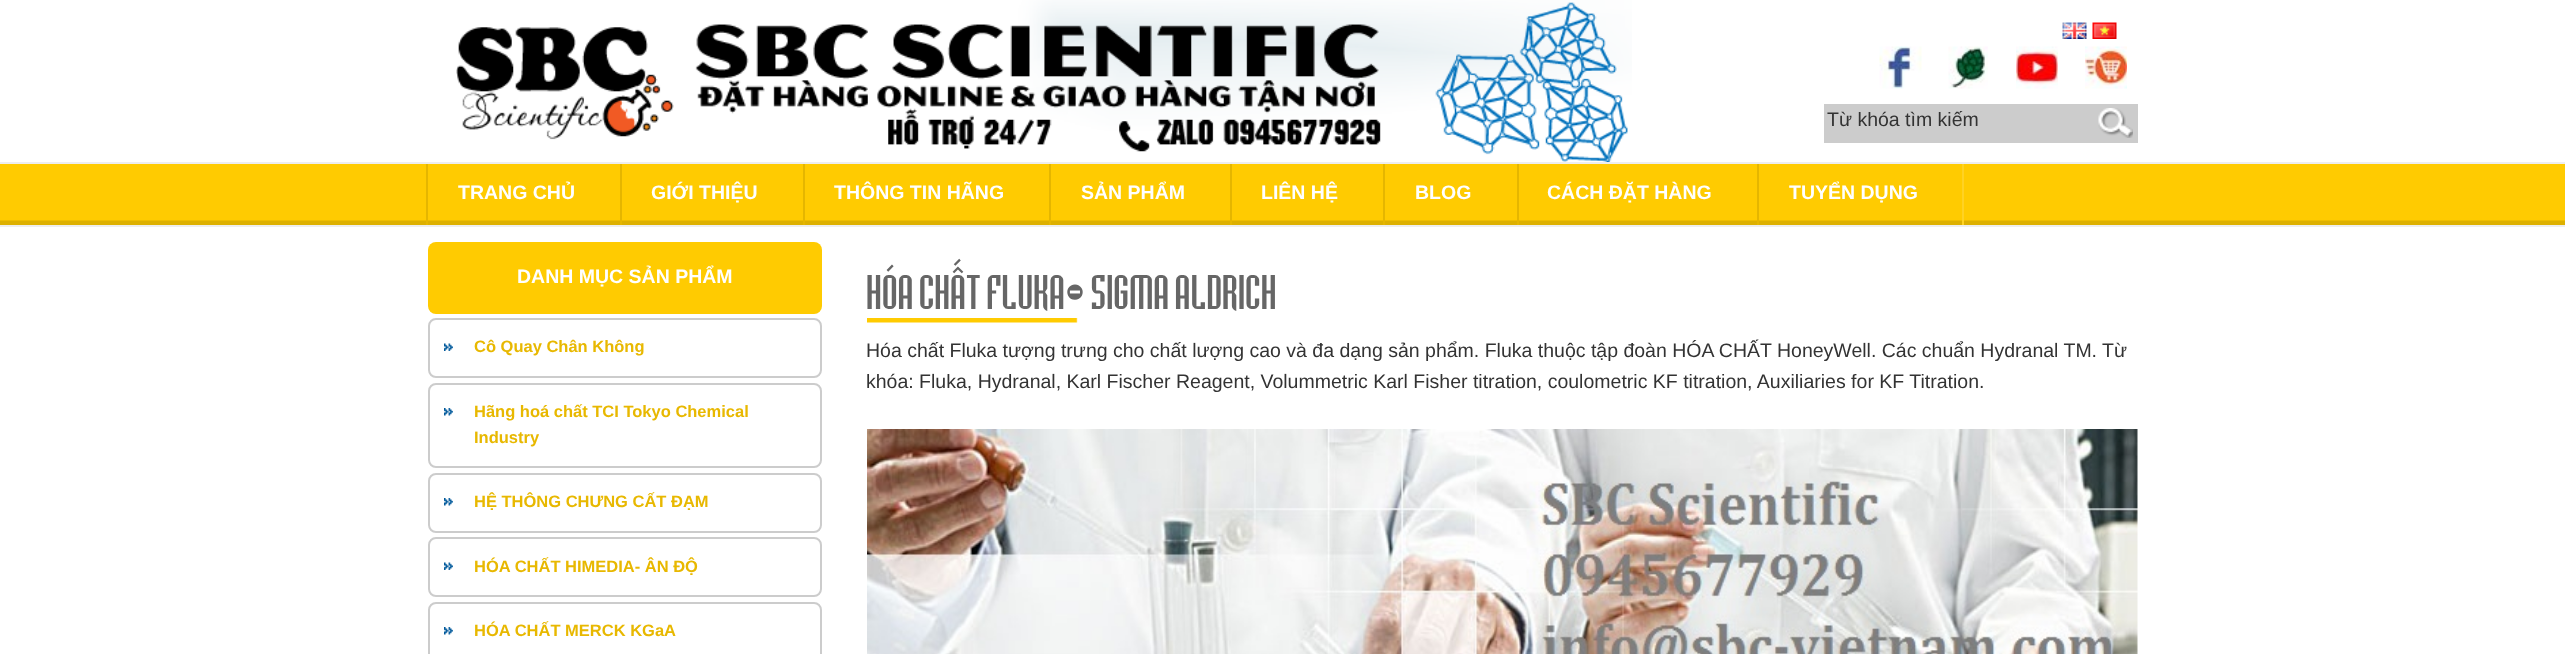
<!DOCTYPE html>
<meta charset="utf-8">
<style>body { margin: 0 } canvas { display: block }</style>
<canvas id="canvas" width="2565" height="654"></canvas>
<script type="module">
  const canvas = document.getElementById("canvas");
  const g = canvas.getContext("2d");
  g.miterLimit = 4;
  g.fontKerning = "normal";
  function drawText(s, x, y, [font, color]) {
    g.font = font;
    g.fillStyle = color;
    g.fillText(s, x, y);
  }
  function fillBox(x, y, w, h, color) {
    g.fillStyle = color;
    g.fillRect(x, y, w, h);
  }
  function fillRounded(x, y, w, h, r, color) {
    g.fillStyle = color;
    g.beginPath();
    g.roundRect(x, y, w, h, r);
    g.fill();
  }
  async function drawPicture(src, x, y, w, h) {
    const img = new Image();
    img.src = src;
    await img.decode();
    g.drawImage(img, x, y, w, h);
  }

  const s1 = ["19.5px Liberation Sans", "#333333"];
  const s2 = ["bold 19.5px Liberation Sans", "#FFFFFF"];
  const s3 = ["bold 16.5px Liberation Sans", "#E8B800"];
  const s4 = ["45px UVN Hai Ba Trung", "#666666"];

  fillBox(0, 0, 2565, 654, "#FFFFFF");
  await drawPicture("pic1.png", 456, 0, 1176, 162);
  await drawPicture("pic2.png", 2062, 22, 25, 17);
  await drawPicture("pic3.png", 2092, 22, 25, 17);
  await drawPicture("pic4.png", 1879, 46, 43, 43);
  await drawPicture("pic5.png", 1948, 46, 40, 43);
  await drawPicture("pic6.png", 2016, 46, 42, 43);
  await drawPicture("pic7.png", 2085, 46, 42, 43);
  fillBox(1824, 104, 314, 39, "#CCCCCC");
  drawText("Từ khóa tìm kiếm", 1827, 126, s1);
  await drawPicture("pic8.png", 2098, 108, 35, 30);
  await drawPicture("pic9.png", 0, 164, 2565, 61);
  fillBox(0, 162, 2565, 2, "#EEEEEE");
  fillBox(0, 225, 2565, 2, "#EEEEEE");
  fillBox(426, 164, 2, 61, "#E5B600");
  drawText("TRANG CHỦ", 458, 199, s2);
  fillBox(620, 164, 2, 61, "#E5B600");
  drawText("GIỚI THIỆU", 651, 199, s2);
  fillBox(803, 164, 2, 61, "#E5B600");
  drawText("THÔNG TIN HÃNG", 834, 199, s2);
  fillBox(1049, 164, 2, 61, "#E5B600");
  drawText("SẢN PHẨM", 1081, 199, s2);
  fillBox(1230, 164, 2, 61, "#E5B600");
  drawText("LIÊN HỆ", 1261, 199, s2);
  fillBox(1383, 164, 2, 61, "#E5B600");
  drawText("BLOG", 1415, 199, s2);
  fillBox(1517, 164, 2, 61, "#E5B600");
  drawText("CÁCH ĐẶT HÀNG", 1547, 199, s2);
  fillBox(1962, 164, 2, 61, "#FFD224");
  fillBox(1757, 164, 2, 61, "#E5B600");
  drawText("TUYỂN DỤNG", 1789, 199, s2);
  fillRounded(428, 242, 394, 72, 8, "#FFCB01");
  drawText("DANH MỤC SẢN PHẨM", 517, 283, s2);
  g.beginPath();
  g.roundRect(429, 319, 392, 58, 7);
  g.strokeStyle = "#CCCCCC";
  g.lineWidth = 2;
  g.stroke();
  await drawPicture("pic10.png", 444, 343, 9, 8);
  drawText("Cô Quay Chân Không", 474, 352, s3);
  g.beginPath();
  g.roundRect(429, 384, 392, 83, 7);
  g.stroke();
  await drawPicture("pic11.png", 444, 408, 9, 8);
  drawText("Hãng hoá chất TCI Tokyo Chemical", 474, 417, s3);
  drawText("Industry", 474, 443, s3);
  g.beginPath();
  g.roundRect(429, 474, 392, 58, 7);
  g.stroke();
  await drawPicture("pic11.png", 444, 498, 9, 8);
  drawText("HỆ THÔNG CHƯNG CẤT ĐẠM", 474, 507, s3);
  g.beginPath();
  g.roundRect(429, 538, 392, 58, 7);
  g.stroke();
  await drawPicture("pic10.png", 444, 562, 9, 8);
  drawText("HÓA CHẤT HIMEDIA- ÂN ĐỘ", 474, 572, s3);
  g.beginPath();
  g.roundRect(429, 603, 392, 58, 7);
  g.stroke();
  await drawPicture("pic11.png", 444, 627, 9, 8);
  drawText("HÓA CHẤT MERCK KGaA", 474, 636, s3);
  await drawPicture("pic12.png", 867, 318, 211, 5);
  drawText("HÓA CHẤT FLUKA- SIGMA ALDRICH", 866, 309, s4);
  drawText("Hóa chất Fluka tượng trưng cho chất lượng cao và đa dạng sản phẩm. Fluka thuộc tập đoàn HÓA CHẤT HoneyWell. Các chuẩn Hydranal TM. Từ", 866, 357, s1);
  drawText("khóa: Fluka, Hydranal, Karl Fischer Reagent, Volummetric Karl Fisher titration, coulometric KF titration, Auxiliaries for KF Titration.", 866, 388, s1);
  await drawPicture("pic13.png", 867, 429, 1271, 225);
</script>
